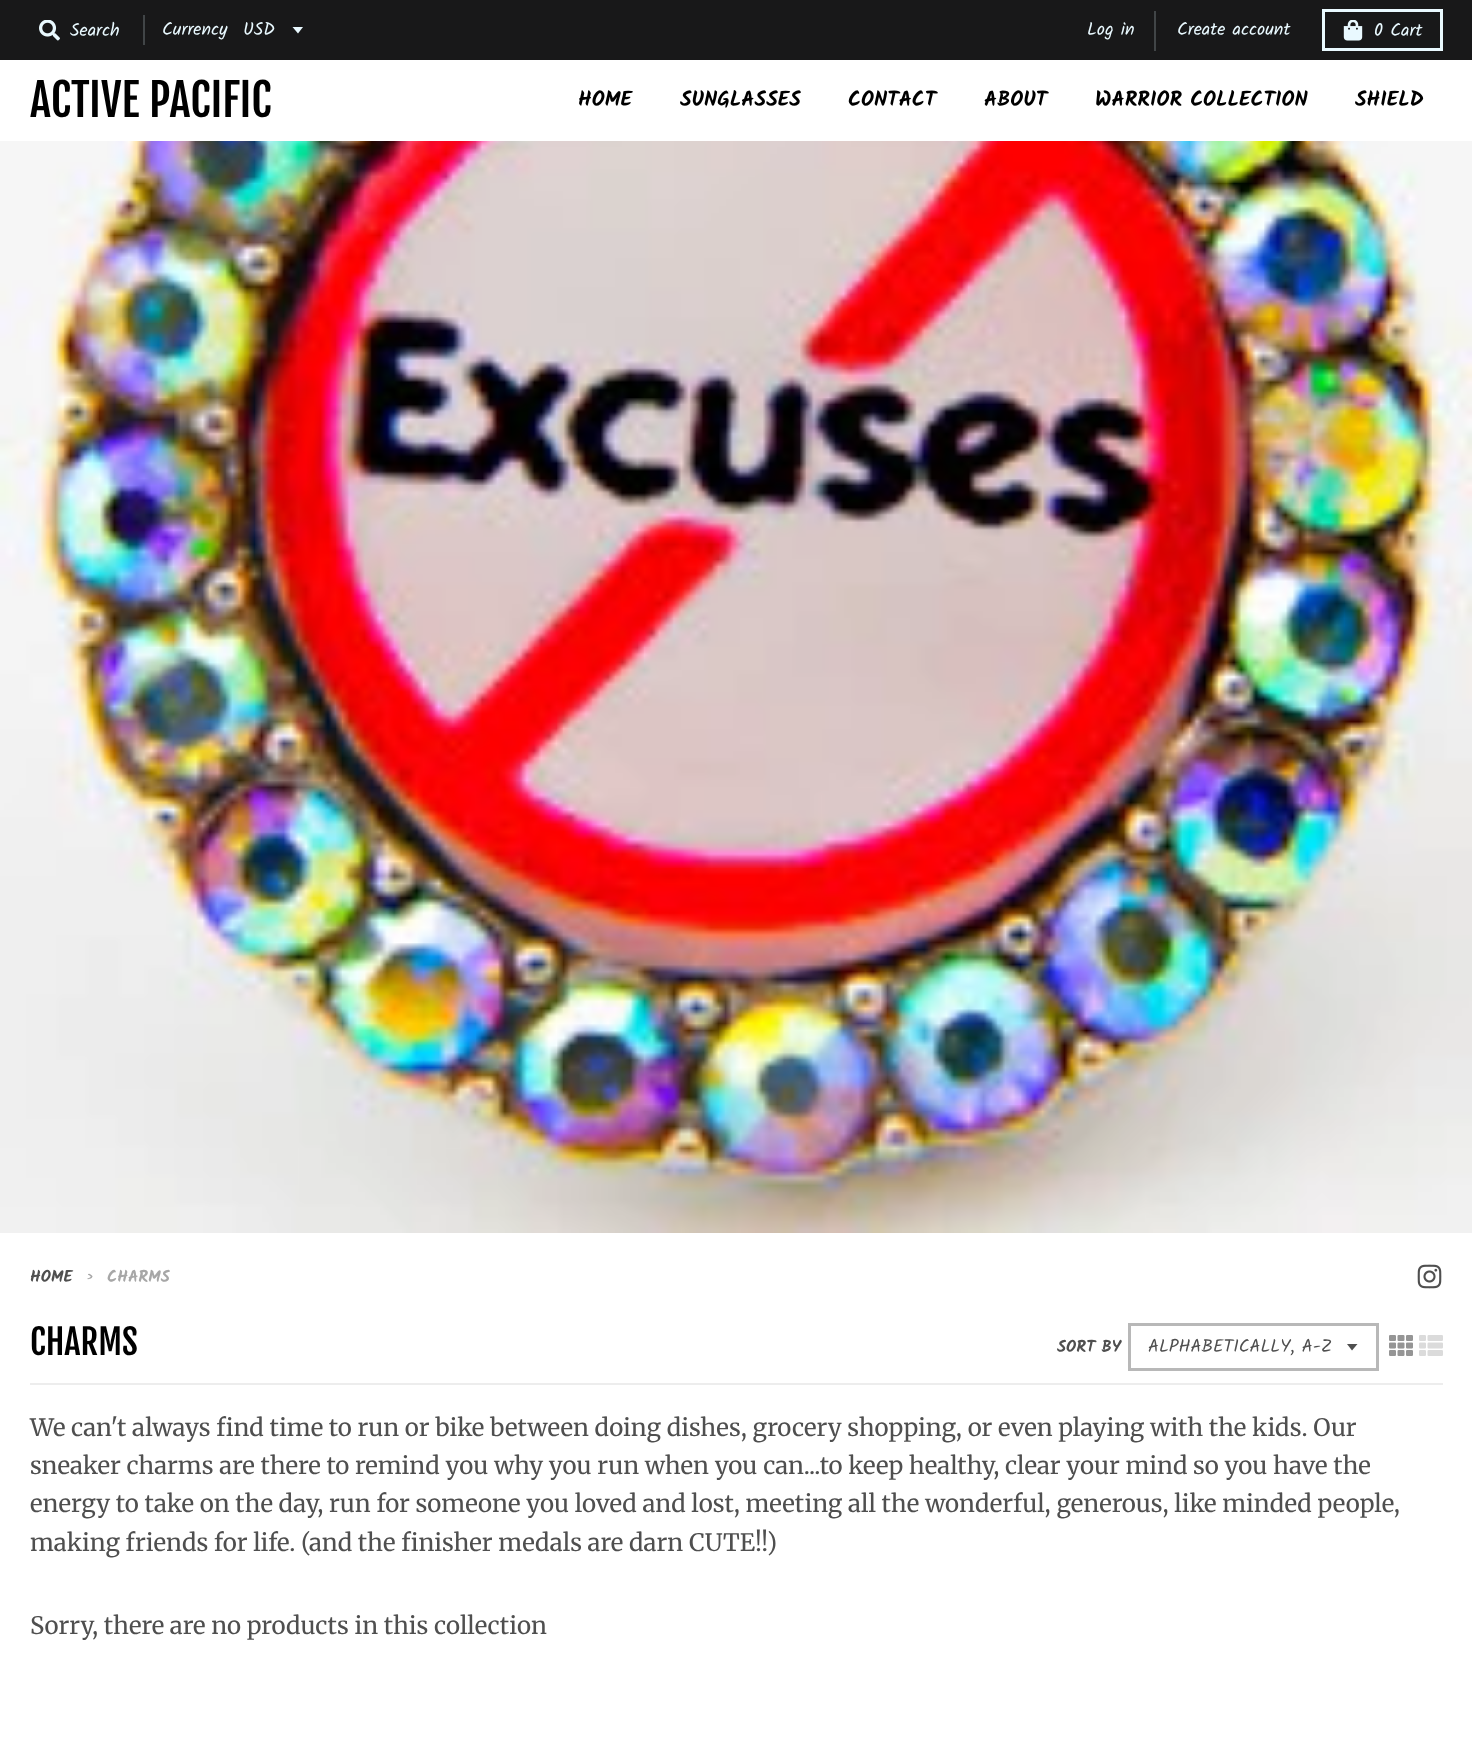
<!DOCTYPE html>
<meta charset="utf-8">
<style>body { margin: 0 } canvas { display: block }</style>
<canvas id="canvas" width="1472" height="1749"></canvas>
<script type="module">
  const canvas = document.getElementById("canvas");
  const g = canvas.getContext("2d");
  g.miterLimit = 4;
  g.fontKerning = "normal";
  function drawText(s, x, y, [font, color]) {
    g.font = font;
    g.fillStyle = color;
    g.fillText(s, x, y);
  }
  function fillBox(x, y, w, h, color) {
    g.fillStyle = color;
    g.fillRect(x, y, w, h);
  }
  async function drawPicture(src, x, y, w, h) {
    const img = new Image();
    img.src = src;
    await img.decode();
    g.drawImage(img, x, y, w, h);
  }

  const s1 = ["18px Kalam", "#E9F9FF"];
  const s2 = ["44.5px Fjalla One", "#000000"];
  const s3 = ["bold 21px Kalam", "#000000"];
  const s4 = ["bold 16.5px Kalam", "#4F4F4F"];
  const s5 = ["bold 16.5px Kalam", "#A7A7A7"];
  const s6 = ["34.5px Fjalla One", "#000000"];
  const s7 = ["18px Kalam", "#4F4F4F"];
  const s8 = ["24px Merriweather", "#4F4F4F"];

  fillBox(0, 0, 1472, 1749, "#FFFFFF");
  fillBox(0, 0, 1472, 60, "#181819");
  await drawPicture("pic1.png", 39, 20, 21, 21);
  drawText("Search", 70, 36, s1);
  fillBox(143, 15, 2, 30, "#414547");
  drawText("Currency", 162, 35, s1);
  g.beginPath();
  g.moveTo(292.5, 27);
  g.lineTo(298, 33.5);
  g.lineTo(303, 27);
  g.closePath();
  g.fill();
  drawText("USD", 243, 35, s1);
  fillBox(1154, 11, 2, 40, "#414547");
  drawText("Log in", 1087, 35, s1);
  drawText("Create account", 1177, 35, s1);
  g.strokeStyle = "#E9F9FF";
  g.lineWidth = 3;
  g.strokeRect(1323.5, 10.5, 118, 39);
  await drawPicture("pic2.png", 1343, 20, 20, 21);
  drawText("0 Cart", 1374, 36, s1);
  drawText("ACTIVE PACIFIC", 30, 117, s2);
  drawText("HOME", 578, 106, s3);
  drawText("SUNGLASSES", 680, 106, s3);
  drawText("CONTACT", 848, 106, s3);
  drawText("ABOUT", 984, 106, s3);
  drawText("WARRIOR COLLECTION", 1095, 106, s3);
  drawText("SHIELD", 1355, 106, s3);
  await drawPicture("pic3.png", 0, 141, 1472, 1092);
  drawText("HOME", 30, 1282, s4);
  drawText("›", 85, 1282, s5);
  drawText("CHARMS", 107, 1282, s5);
  await drawPicture("pic4.png", 1417, 1264, 25, 25);
  fillBox(30, 1383, 1413, 2, "#EDEDED");
  drawText("CHARMS", 30, 1355, s6);
  drawText("SORT BY", 1057, 1352, s4);
  g.beginPath();
  g.moveTo(1347, 1344);
  g.lineTo(1352, 1350.5);
  g.lineTo(1357.5, 1344);
  g.closePath();
  g.fill();
  g.strokeStyle = "#B8B8B8";
  g.strokeRect(1129.5, 1324.5, 248, 45);
  drawText("ALPHABETICALLY, A-Z", 1148, 1352, s7);
  await drawPicture("pic5.png", 1389, 1335, 24, 21);
  await drawPicture("pic6.png", 1419, 1335, 24, 21);
  drawText("We can't always find time to run or bike between doing dishes, grocery shopping, or even playing with the kids. Our", 30, 1436, s8);
  drawText("sneaker charms are there to remind you why you run when you can...to keep healthy, clear your mind so you have the", 30, 1474, s8);
  drawText("energy to take on the day, run for someone you loved and lost, meeting all the wonderful, generous, like minded people,", 30, 1512, s8);
  drawText("making friends for life. (and the finisher medals are darn CUTE!!)", 30, 1551, s8);
  drawText("Sorry, there are no products in this collection", 30, 1634, s8);
</script>
